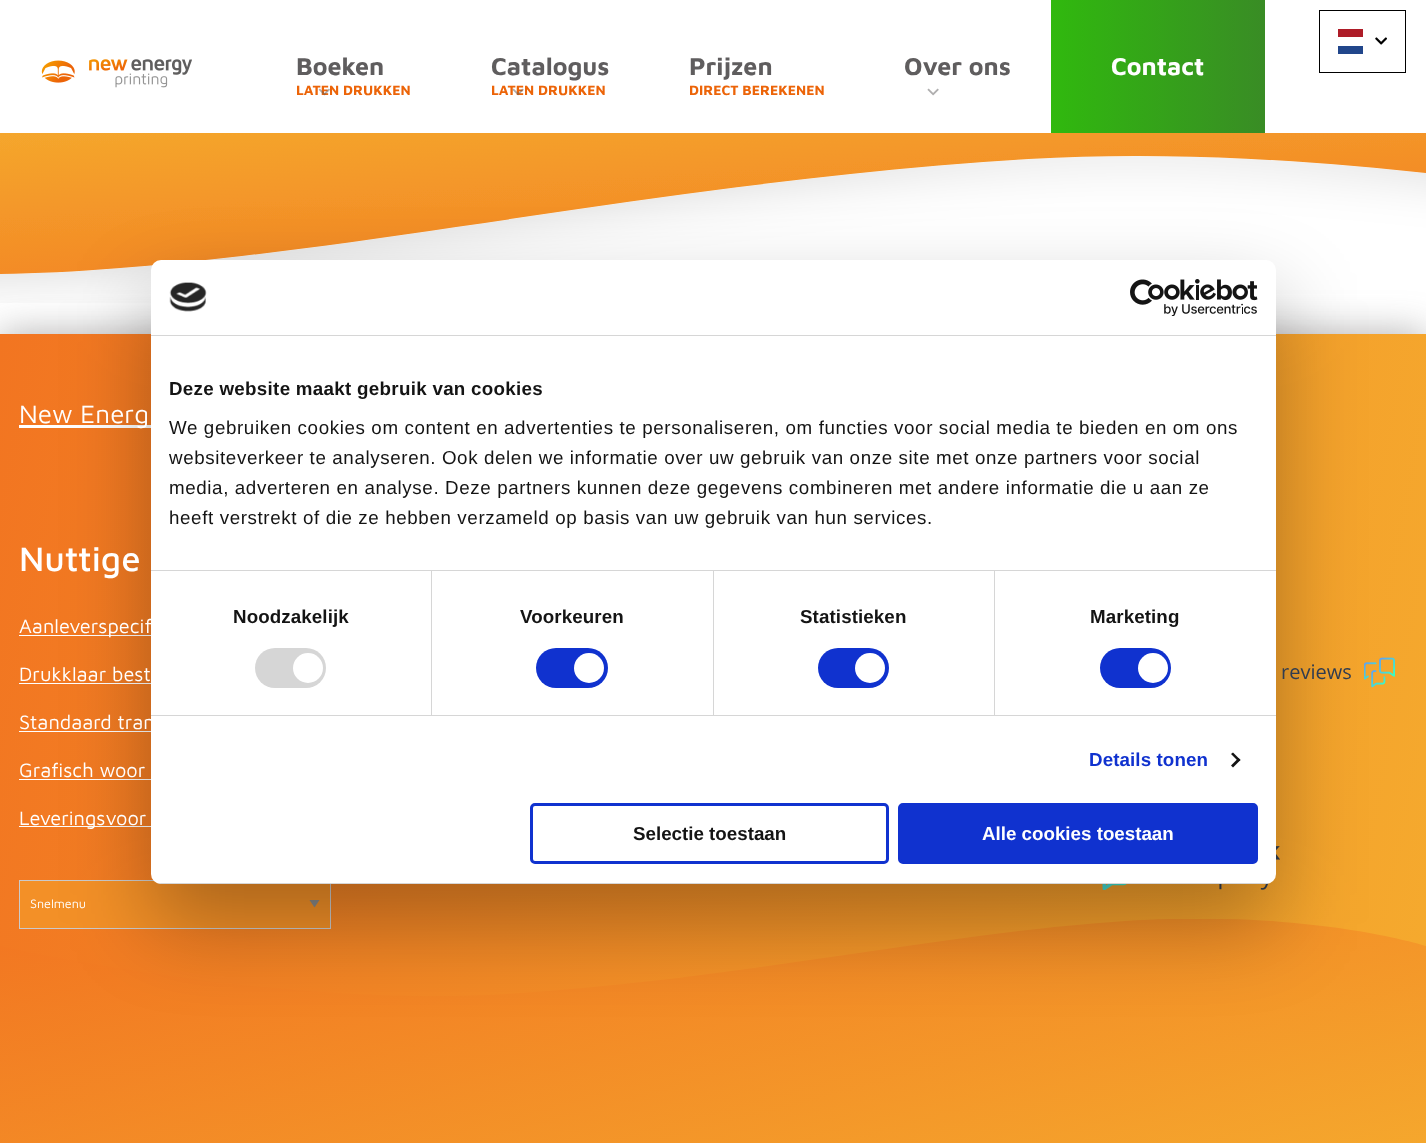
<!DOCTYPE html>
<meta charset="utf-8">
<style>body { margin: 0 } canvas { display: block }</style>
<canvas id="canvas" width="1426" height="1143"></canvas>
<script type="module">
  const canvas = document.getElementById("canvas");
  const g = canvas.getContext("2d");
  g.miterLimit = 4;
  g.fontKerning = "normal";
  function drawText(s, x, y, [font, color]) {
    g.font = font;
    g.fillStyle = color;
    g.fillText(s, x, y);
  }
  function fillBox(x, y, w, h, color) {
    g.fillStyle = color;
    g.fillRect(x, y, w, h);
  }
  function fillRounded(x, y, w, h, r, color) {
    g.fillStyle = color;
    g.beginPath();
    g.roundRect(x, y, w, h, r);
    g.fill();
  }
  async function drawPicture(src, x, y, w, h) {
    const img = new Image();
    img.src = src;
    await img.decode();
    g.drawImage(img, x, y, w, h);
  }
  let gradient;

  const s1 = ["bold 25px Maven Pro", "#5F5D5E"];
  const s2 = ["bold 14px Maven Pro", "#EC6408"];
  const s3 = ["bold 25px Maven Pro", "#FFFFFF"];
  const s4 = ["bold 18.75px Liberation Sans", "#141414"];
  const s5 = ["18.75px Liberation Sans", "#141414"];
  const s6 = ["20px Maven Pro", "#FFFFFF"];
  const s7 = ["bold 18.75px Liberation Sans", "#1032CF"];
  const s8 = ["bold 18.75px Liberation Sans", "#FFFFFF"];
  const s9 = ["26px Maven Pro", "#FFFFFF"];
  const s10 = ["500 35px Maven Pro", "#FFFFFF"];
  const s11 = ["12.5px Maven Pro", "#FFFFFF"];
  const s12 = ["20px Open Sans", "#303C50"];

  fillBox(0, 0, 1426, 1143, "#FFFFFF");
  await drawPicture("pic1.png", 41, 59, 151, 29);
  drawText("Boeken", 296, 75, s1);
  drawText("LATEN DRUKKEN", 296, 95, s2);
  await drawPicture("pic2.png", 318, 88, 12, 8);
  drawText("Catalogus", 491, 75, s1);
  drawText("LATEN DRUKKEN", 491, 95, s2);
  await drawPicture("pic3.png", 512, 88, 12, 8);
  drawText("Prijzen", 689, 75, s1);
  drawText("DIRECT BEREKENEN", 689, 95, s2);
  drawText("Over ons", 904, 75, s1);
  await drawPicture("pic4.png", 927, 88, 12, 8);
  gradient = g.createLinearGradient(1265, 66, 1051, 66);
  gradient.addColorStop(0, "#398C25");
  gradient.addColorStop(1, "#30B90E");
  g.fillStyle = gradient;
  g.fillRect(1051, 0, 214, 133);
  drawText("Contact", 1111, 75, s3);
  g.strokeStyle = "#000000";
  g.strokeRect(1319.5, 10.5, 86, 62);
  fillBox(1338, 46, 25, 8, "#21468B");
  fillBox(1338, 29, 25, 8, "#AE1C28");
  await drawPicture("pic5.png", 1375, 37, 12, 8);
  g.fillStyle = "rgba(95, 93, 94, 0.5)";
  g.filter = "blur(19px)";
  g.beginPath();
  g.rect(0, 334, 1426, 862);
  g.fill();
  g.filter = "none";
  await drawPicture("pic6.png", 0, 133, 1426, 170);
  gradient = g.createLinearGradient(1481, 914, -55, 616);
  gradient.addColorStop(0, "#F5AB2E");
  gradient.addColorStop(1, "#F27521");
  g.fillStyle = gradient;
  g.fillRect(0, 334, 1426, 809);
  fillBox(19, 425, 132, 3, "#FFFFFF");
  g.save();
  g.beginPath();
  g.rect(0, 919, 1426, 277);
  g.clip();
  gradient = g.createLinearGradient(1426, 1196, 1322, 662);
  gradient.addColorStop(0, "rgba(245, 171, 46, 0.81)");
  gradient.addColorStop(1, "rgba(242, 117, 33, 0.81)");
  g.fillStyle = gradient;
  g.beginPath();
  g.moveTo(0, 946);
  g.bezierCurveTo(0, 946, 274, 1008, 506, 994);
  g.bezierCurveTo(737, 980, 940, 933, 1125, 921);
  g.bezierCurveTo(1310, 909, 1426, 946, 1426, 946);
  g.lineTo(1426, 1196);
  g.lineTo(0, 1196);
  g.closePath();
  g.fill();
  g.restore();
  fillBox(19, 635, 132, 1, "#FFFFFF");
  fillBox(19, 683, 132, 1, "#FFFFFF");
  fillBox(19, 731, 132, 1, "#FFFFFF");
  fillBox(19, 779, 132, 1, "#FFFFFF");
  fillBox(19, 826, 132, 1, "#FFFFFF");
  fillBox(20, 881, 310, 47, "#F39027");
  g.fillStyle = "#8A8A8A";
  g.beginPath();
  g.moveTo(309.5, 900);
  g.lineTo(319.5, 900);
  g.lineTo(314.5, 907.5);
  g.closePath();
  g.fill();
  g.strokeStyle = "#CACACA";
  g.strokeRect(19.5, 880.5, 311, 48);
  await drawPicture("pic9.png", 1364, 657, 31, 31);
  await drawPicture("pic10.png", 1102, 846, 178, 44);
  g.fillStyle = "rgba(0, 0, 0, 0.3)";
  g.filter = "blur(42.5px)";
  g.beginPath();
  g.roundRect(151, 300, 1125, 624, 10);
  g.fill();
  g.filter = "none";
  fillRounded(151, 260, 1125, 624, 10, "#FFFFFF");
  fillBox(151, 335, 1125, 1, "#D6D6D6");
  await drawPicture("pic7.png", 169, 282, 38, 30);
  await drawPicture("pic8.png", 1130, 279, 128, 37);
  fillBox(151, 570, 1125, 1, "#D6D6D6");
  g.letterSpacing = "0.3px";
  drawText("Deze website maakt gebruik van cookies", 169, 395, s4);
  g.letterSpacing = "0.62px";
  drawText("We gebruiken cookies om content en advertenties te personaliseren, om functies voor social media te bieden en om ons", 169, 434, s5);
  drawText("websiteverkeer te analyseren. Ook delen we informatie over uw gebruik van onze site met onze partners voor social", 169, 464, s5);
  drawText("media, adverteren en analyse. Deze partners kunnen deze gegevens combineren met andere informatie die u aan ze", 169, 494, s5);
  drawText("heeft verstrekt of die ze hebben verzameld op basis van uw gebruik van hun services.", 169, 524, s5);
  g.letterSpacing = "0px";
  drawText("Standaard tran", 19, 729, s6);
  fillBox(151, 715, 1125, 1, "#D6D6D6");
  fillBox(431, 571, 1, 144, "#D6D6D6");
  g.letterSpacing = "0.1px";
  drawText("Noodzakelijk", 233, 623, s4);
  fillRounded(255, 648, 71, 40, 20, "#D6D6D6");
  g.fillStyle = "#FFFFFF";
  g.beginPath();
  g.arc(308, 668, 15, 0, Math.PI * 2);
  g.fill();
  fillBox(713, 571, 1, 144, "#D6D6D6");
  drawText("Voorkeuren", 520, 623, s4);
  fillRounded(536, 648, 72, 40, 20, "#1032CF");
  g.fillStyle = "#FFFFFF";
  g.beginPath();
  g.arc(589, 668, 15, 0, Math.PI * 2);
  g.fill();
  fillBox(994, 571, 1, 144, "#D6D6D6");
  drawText("Statistieken", 800, 623, s4);
  fillRounded(818, 648, 71, 40, 20, "#1032CF");
  g.fillStyle = "#FFFFFF";
  g.beginPath();
  g.arc(870, 668, 15, 0, Math.PI * 2);
  g.fill();
  drawText("Marketing", 1090, 623, s4);
  fillRounded(1100, 648, 71, 40, 20, "#1032CF");
  g.fillStyle = "#FFFFFF";
  g.beginPath();
  g.arc(1153, 668, 15, 0, Math.PI * 2);
  g.fill();
  drawText("Details tonen", 1089, 766, s7);
  g.fillStyle = "#141414";
  g.beginPath();
  g.moveTo(1233, 752.5);
  g.lineTo(1240.5, 760);
  g.lineTo(1238.5, 761.5);
  g.lineTo(1231, 754);
  g.closePath();
  g.fill();
  g.beginPath();
  g.moveTo(1238.5, 758);
  g.lineTo(1240.5, 760);
  g.lineTo(1233, 767.5);
  g.lineTo(1231, 765.5);
  g.closePath();
  g.fill();
  g.save();
  g.beginPath();
  g.roundRect(151, 260, 1125, 624, 10);
  g.clip();
  fillBox(151, 883, 1125, 1, "#D6D6D6");
  g.restore();
  g.beginPath();
  g.roundRect(531.5, 804.5, 356, 58, 3.5);
  g.strokeStyle = "#1032CF";
  g.lineWidth = 3;
  g.stroke();
  g.letterSpacing = "0px";
  drawText("Selectie toestaan", 633, 840, s4);
  g.fillStyle = "#1032CF";
  g.beginPath();
  g.roundRect(899.5, 804.5, 357, 58, 3.5);
  g.fill();
  g.stroke();
  drawText("Alle cookies toestaan", 982, 840, s8);
  drawText("New Energ", 19, 423, s9);
  drawText("Nuttige", 19, 571, s10);
  drawText("Aanleverspecif", 19, 633, s6);
  drawText("Drukklaar best", 19, 681, s6);
  drawText("Grafisch woor", 19, 777, s6);
  drawText("Leveringsvoor", 19, 825, s6);
  drawText("Snelmenu", 30, 908, s11);
  drawText("reviews", 1281, 679, s12);
</script>
